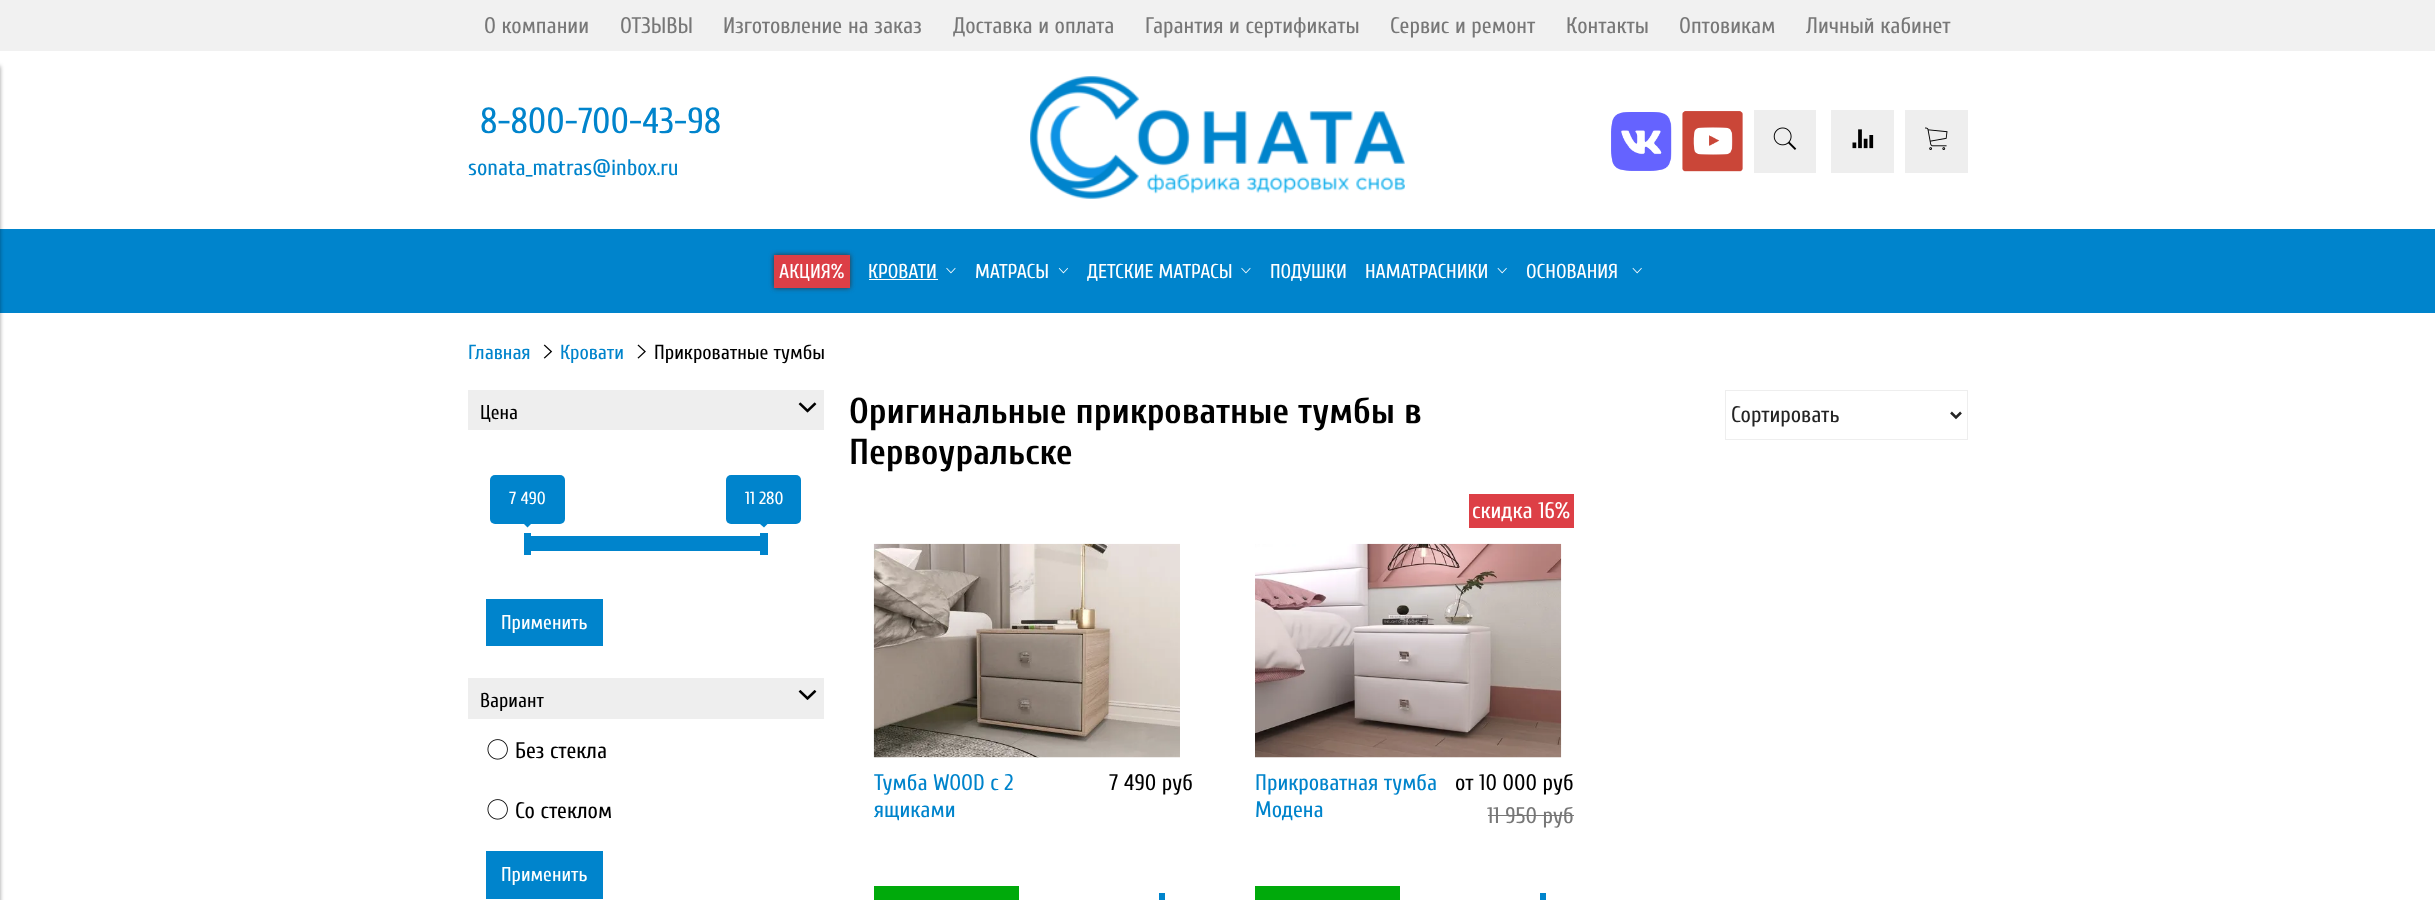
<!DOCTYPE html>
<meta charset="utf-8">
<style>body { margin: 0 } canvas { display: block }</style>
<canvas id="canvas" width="2435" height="900"></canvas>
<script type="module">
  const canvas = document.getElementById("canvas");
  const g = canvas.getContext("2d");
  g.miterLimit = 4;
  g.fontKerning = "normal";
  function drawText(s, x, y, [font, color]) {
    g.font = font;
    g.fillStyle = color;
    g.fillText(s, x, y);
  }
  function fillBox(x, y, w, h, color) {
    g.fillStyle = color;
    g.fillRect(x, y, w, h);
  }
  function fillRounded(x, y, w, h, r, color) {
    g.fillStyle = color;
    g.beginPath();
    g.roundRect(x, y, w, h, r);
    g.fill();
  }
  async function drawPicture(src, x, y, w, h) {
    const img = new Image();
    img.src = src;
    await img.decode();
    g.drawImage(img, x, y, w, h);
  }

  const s1 = ["22.5px Cuprum", "#777777"];
  const s2 = ["36.25px Cuprum", "#0084CC"];
  const s3 = ["22.5px Cuprum", "#0084CC"];
  const s4 = ["20px Cuprum", "#FFFFFF"];
  const s5 = ["20.25px Cuprum", "#0084CC"];
  const s6 = ["20.25px Cuprum", "#000000"];
  const s7 = ["20px Cuprum", "#000000"];
  const s8 = ["17.5px Cuprum", "#FFFFFF"];
  const s9 = ["22.5px Cuprum", "#000000"];
  const s10 = ["bold 36px Cuprum", "#000000"];
  const s11 = ["22.5px Cuprum", "#252525"];
  const s12 = ["22.5px Cuprum", "#FFFFFF"];

  fillBox(0, 0, 2435, 900, "#FFFFFF");
  fillBox(0, 229, 2435, 84, "#0084CC");
  g.fillStyle = "rgba(0, 0, 0, 0.4)";
  g.filter = "blur(2px)";
  g.beginPath();
  g.rect(-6, 66, 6, 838);
  g.fill();
  g.filter = "none";
  fillBox(0, 0, 2435, 51, "#F1F1F1");
  drawText("О компании", 484, 33, s1);
  drawText("ОТЗЫВЫ", 620, 33, s1);
  drawText("Изготовление на заказ", 723, 33, s1);
  drawText("Доставка и оплата", 953, 33, s1);
  drawText("Гарантия и сертификаты", 1145, 33, s1);
  drawText("Сервис и ремонт", 1390, 33, s1);
  drawText("Контакты", 1566, 33, s1);
  drawText("Оптовикам", 1679, 33, s1);
  drawText("Личный кабинет", 1806, 33, s1);
  drawText("8-800-700-43-98", 480, 133, s2);
  drawText("sonata_matras@inbox.ru", 468, 175, s3);
  await drawPicture("pic1.png", 1030, 76, 375, 123);
  await drawPicture("pic2.png", 1611, 112, 61, 59);
  await drawPicture("pic3.png", 1682, 111, 61, 61);
  fillBox(1754, 110, 62, 63, "#EEEEEE");
  await drawPicture("pic4.png", 1773, 127, 24, 23);
  fillBox(1831, 110, 63, 63, "#EEEEEE");
  await drawPicture("pic5.png", 1852, 129, 22, 20);
  fillBox(1905, 110, 63, 63, "#EEEEEE");
  await drawPicture("pic6.png", 1925, 127, 23, 23);
  g.fillStyle = "#333333";
  g.filter = "blur(2.5px)";
  g.beginPath();
  g.rect(774, 255, 76, 33);
  g.fill();
  g.filter = "none";
  fillBox(774, 255, 76, 33, "#DC3F46");
  drawText("АКЦИЯ%", 779, 278, s4);
  drawText("КРОВАТИ", 868, 278, s4);
  fillBox(869, 279, 69, 1, "#FFFFFF");
  await drawPicture("pic7.png", 946, 267, 10, 7);
  drawText("МАТРАСЫ", 975, 278, s4);
  await drawPicture("pic8.png", 1058, 267, 10, 7);
  drawText("ДЕТСКИЕ МАТРАСЫ", 1087, 278, s4);
  await drawPicture("pic7.png", 1241, 267, 10, 7);
  drawText("ПОДУШКИ", 1270, 278, s4);
  drawText("НАМАТРАСНИКИ", 1365, 278, s4);
  await drawPicture("pic9.png", 1497, 267, 10, 7);
  drawText("ОСНОВАНИЯ", 1526, 278, s4);
  await drawPicture("pic9.png", 1632, 267, 10, 7);
  drawText("Главная", 468, 359, s5);
  await drawPicture("pic10.png", 543, 344, 10, 15);
  drawText("Кровати", 560, 359, s5);
  await drawPicture("pic11.png", 637, 344, 9, 15);
  drawText("Прикроватные тумбы", 654, 359, s6);
  fillBox(468, 390, 356, 40, "#EEEEEE");
  drawText("Цена", 480, 419, s7);
  await drawPicture("pic12.png", 798, 402, 19, 11);
  fillRounded(490, 475, 75, 49, 5, "#0084CC");
  drawText("7 490", 509, 504, s8);
  g.fillStyle = "#0084CC";
  g.beginPath();
  g.moveTo(524, 524);
  g.lineTo(531, 524);
  g.lineTo(527.5, 527.5);
  g.closePath();
  g.fill();
  fillRounded(726, 475, 75, 49, 5, "#0084CC");
  drawText("11 280", 745, 504, s8);
  g.fillStyle = "#0084CC";
  g.beginPath();
  g.moveTo(760, 524);
  g.lineTo(767.5, 524);
  g.lineTo(764, 527.5);
  g.closePath();
  g.fill();
  fillBox(524, 533, 7, 22, "#0084CC");
  fillBox(531, 536, 229, 15, "#0084CC");
  fillBox(760, 533, 8, 22, "#0084CC");
  fillBox(486, 599, 117, 47, "#0084CC");
  drawText("Применить", 501, 629, s4);
  fillBox(468, 678, 356, 41, "#EEEEEE");
  drawText("Вариант", 480, 707, s7);
  await drawPicture("pic13.png", 798, 690, 19, 10);
  await drawPicture("pic14.png", 487, 739, 21, 21);
  drawText("Без стекла", 515, 758, s9);
  await drawPicture("pic14.png", 487, 799, 21, 21);
  drawText("Со стеклом", 515, 818, s9);
  fillBox(486, 851, 117, 48, "#0084CC");
  drawText("Применить", 501, 881, s4);
  drawText("Оригинальные прикроватные тумбы в", 849, 423, s10);
  drawText("Первоуральске", 849, 464, s10);
  g.strokeStyle = "#EEEEEE";
  g.strokeRect(1725.5, 390.5, 242, 49);
  g.beginPath();
  g.moveTo(1951, 412.5);
  g.lineTo(1956, 417.5);
  g.lineTo(1961, 412.5);
  g.strokeStyle = "#252525";
  g.lineWidth = 2.5;
  g.stroke();
  drawText("Сортировать", 1731, 422, s11);
  await drawPicture("pic15.png", 873, 543, 307, 215);
  drawText("Тумба WOOD c 2", 874, 790, s3);
  drawText("ящиками", 874, 817, s3);
  drawText("7 490 руб", 1109, 790, s9);
  fillBox(874, 886, 145, 14, "#00AA0B");
  fillBox(1159, 893, 6, 7, "#0084CC");
  fillBox(1469, 494, 105, 34, "#DD3F46");
  drawText("скидка 16%", 1472, 518, s12);
  await drawPicture("pic16.png", 1255, 543, 307, 215);
  drawText("Прикроватная тумба", 1255, 790, s3);
  drawText("Модена", 1255, 817, s3);
  drawText("от 10 000 руб", 1455, 790, s9);
  drawText("11 950 руб", 1487, 823, s1);
  fillBox(1488, 815, 86, 1, "#777777");
  fillBox(1255, 886, 145, 14, "#00AA0B");
  fillBox(1540, 893, 6, 7, "#0084CC");
</script>
